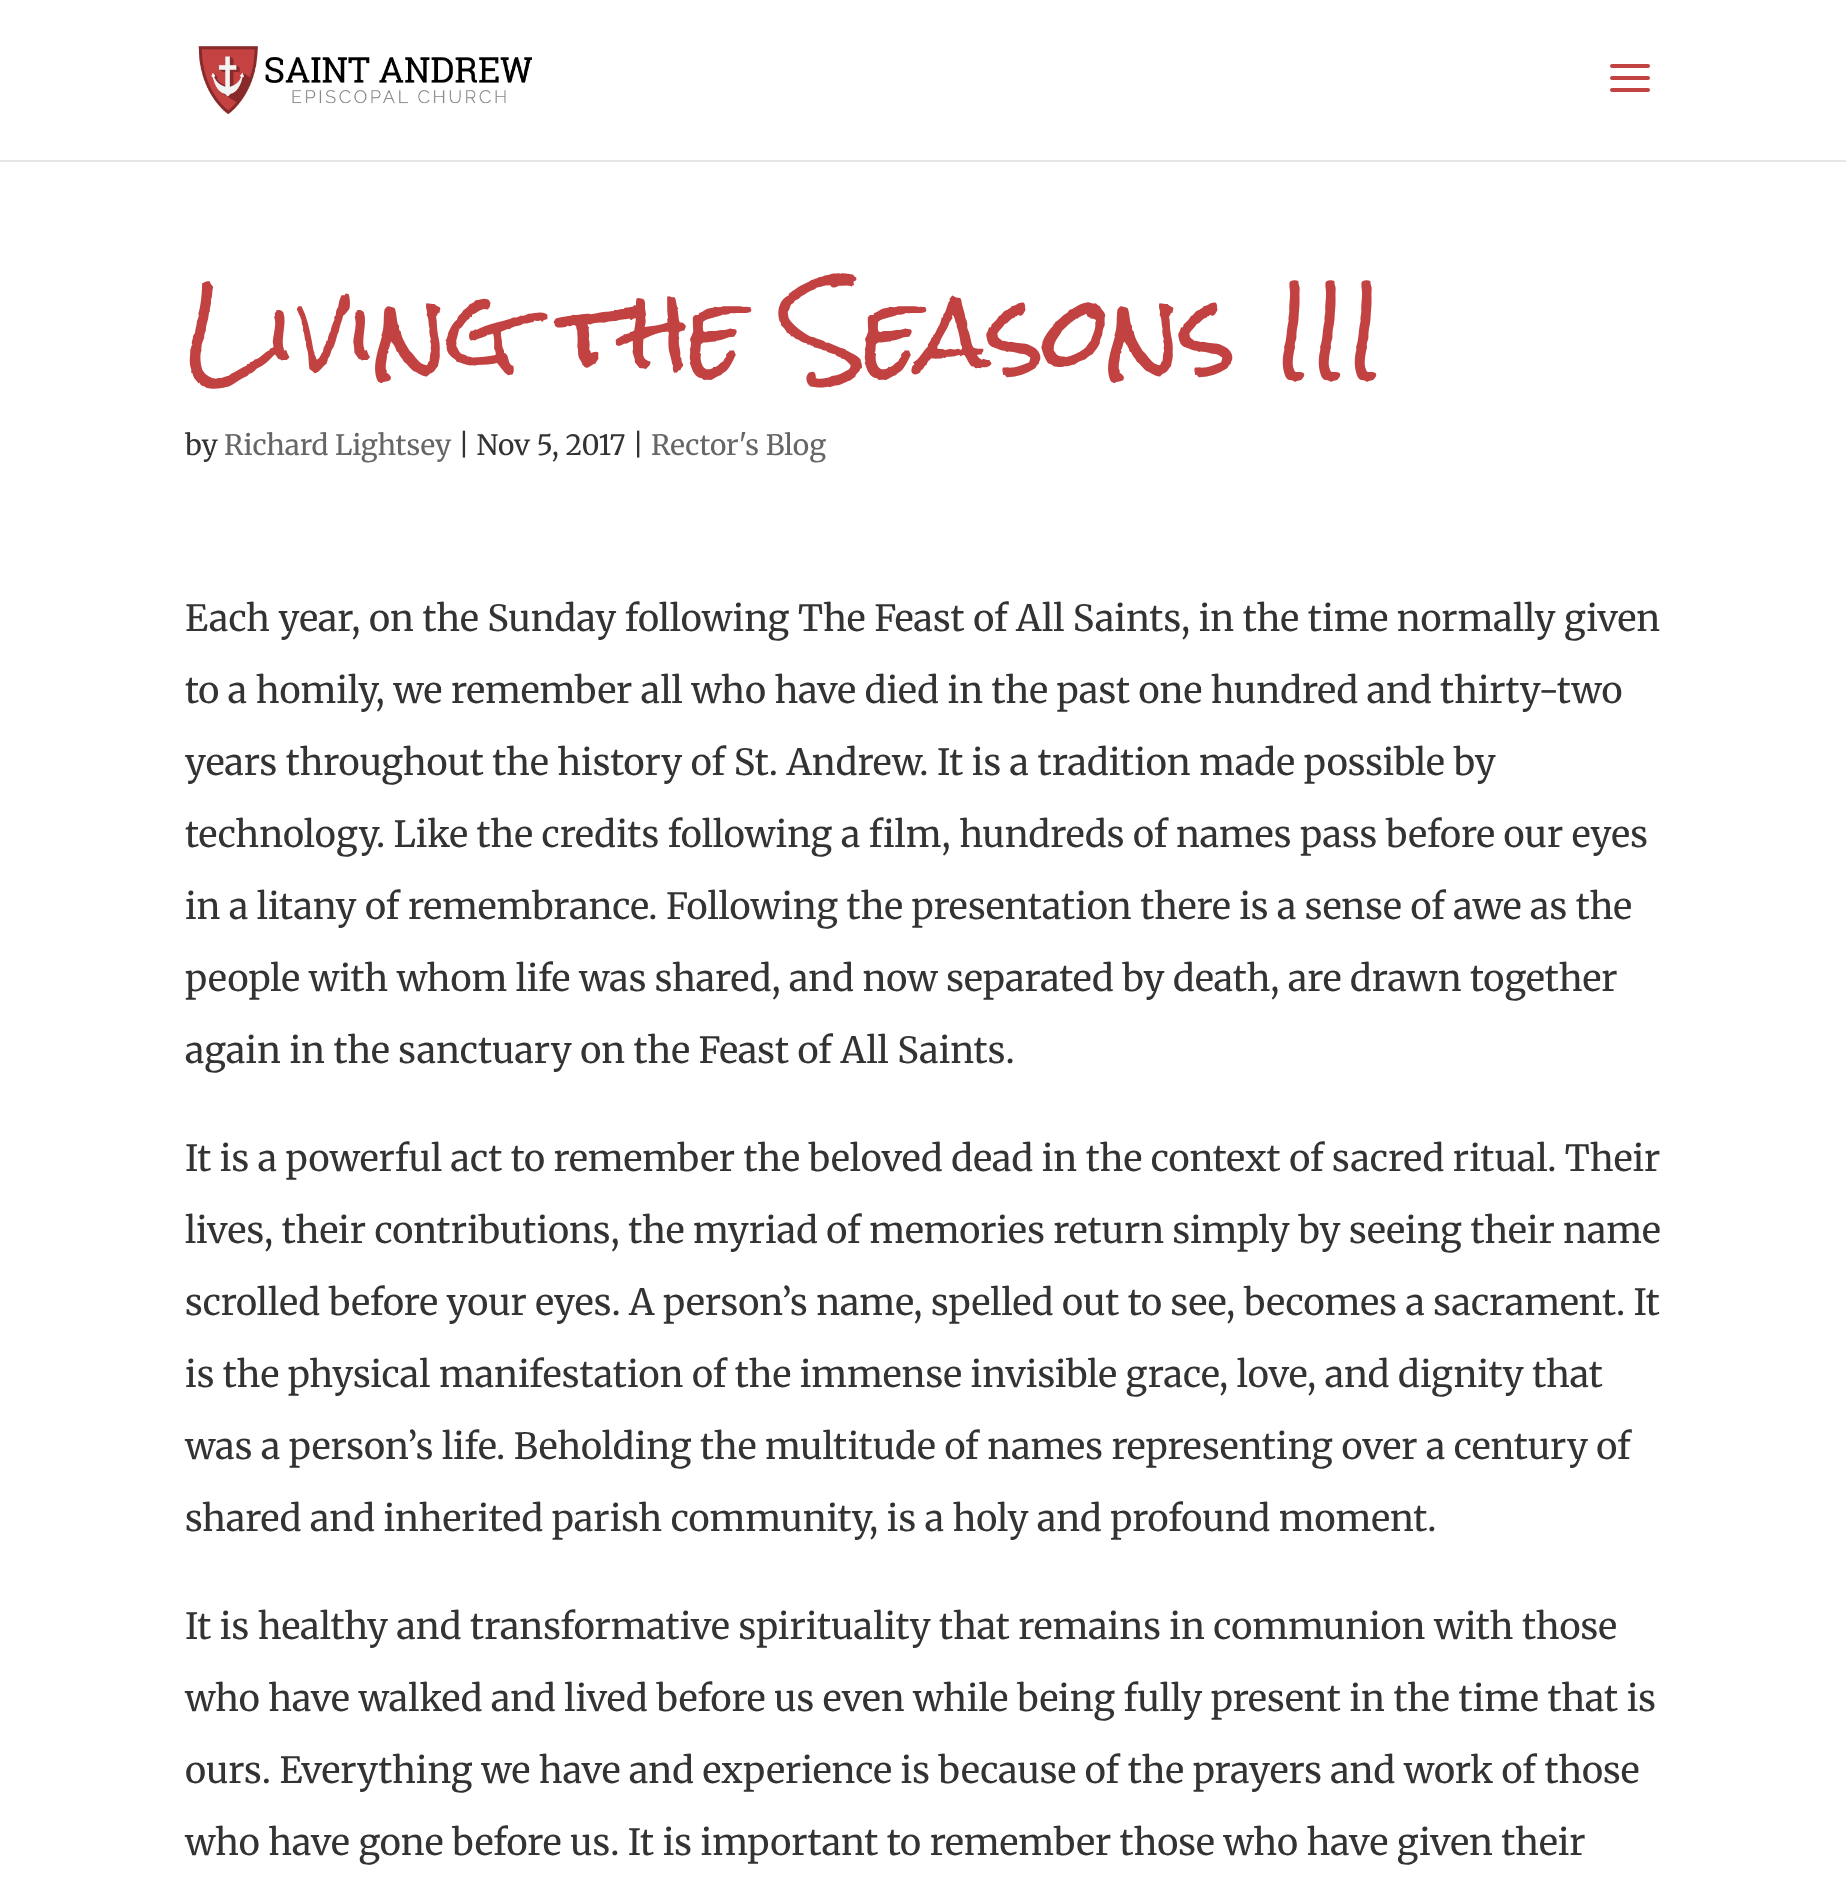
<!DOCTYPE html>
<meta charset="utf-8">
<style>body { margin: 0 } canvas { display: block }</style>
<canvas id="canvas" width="1846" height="1877"></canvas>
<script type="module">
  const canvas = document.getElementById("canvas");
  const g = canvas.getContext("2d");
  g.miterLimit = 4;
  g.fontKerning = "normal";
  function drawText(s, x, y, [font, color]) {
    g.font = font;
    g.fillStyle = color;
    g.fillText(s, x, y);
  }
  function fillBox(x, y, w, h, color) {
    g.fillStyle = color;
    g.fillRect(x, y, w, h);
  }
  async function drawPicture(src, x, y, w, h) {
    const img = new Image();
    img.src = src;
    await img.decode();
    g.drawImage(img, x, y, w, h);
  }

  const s1 = ["96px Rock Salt", "#C24242"];
  const s2 = ["300 28px Merriweather", "#333333"];
  const s3 = ["300 28px Merriweather", "#666666"];
  const s4 = ["300 36px Merriweather", "#333333"];

  fillBox(0, 0, 1846, 1877, "#FFFFFF");
  fillBox(0, 160, 1846, 2, "#E6E6E6");
  await drawPicture("pic1.png", 198, 46, 334, 69);
  await drawPicture("pic2.png", 1610, 64, 40, 28);
  drawText("Living the Seasons III", 185, 370, s1);
  drawText("by", 185, 455, s2);
  drawText("Richard Lightsey", 224, 455, s3);
  drawText("| Nov 5, 2017 |", 458, 455, s2);
  drawText("Rector's Blog", 651, 455, s3);
  drawText("Each year, on the Sunday following The Feast of All Saints, in the time normally given", 185, 631, s4);
  drawText("to a homily, we remember all who have died in the past one hundred and thirty-two", 185, 703, s4);
  drawText("years throughout the history of St. Andrew. It is a tradition made possible by", 185, 775, s4);
  drawText("technology. Like the credits following a film, hundreds of names pass before our eyes", 185, 847, s4);
  drawText("in a litany of remembrance. Following the presentation there is a sense of awe as the", 185, 919, s4);
  drawText("people with whom life was shared, and now separated by death, are drawn together", 185, 991, s4);
  drawText("again in the sanctuary on the Feast of All Saints.", 185, 1063, s4);
  drawText("It is a powerful act to remember the beloved dead in the context of sacred ritual. Their", 185, 1171, s4);
  drawText("lives, their contributions, the myriad of memories return simply by seeing their name", 185, 1243, s4);
  drawText("scrolled before your eyes. A person’s name, spelled out to see, becomes a sacrament. It", 185, 1315, s4);
  drawText("is the physical manifestation of the immense invisible grace, love, and dignity that", 185, 1387, s4);
  drawText("was a person’s life. Beholding the multitude of names representing over a century of", 185, 1459, s4);
  drawText("shared and inherited parish community, is a holy and profound moment.", 185, 1531, s4);
  drawText("It is healthy and transformative spirituality that remains in communion with those", 185, 1639, s4);
  drawText("who have walked and lived before us even while being fully present in the time that is", 185, 1711, s4);
  drawText("ours. Everything we have and experience is because of the prayers and work of those", 185, 1783, s4);
  drawText("who have gone before us. It is important to remember those who have given their", 185, 1855, s4);
</script>
